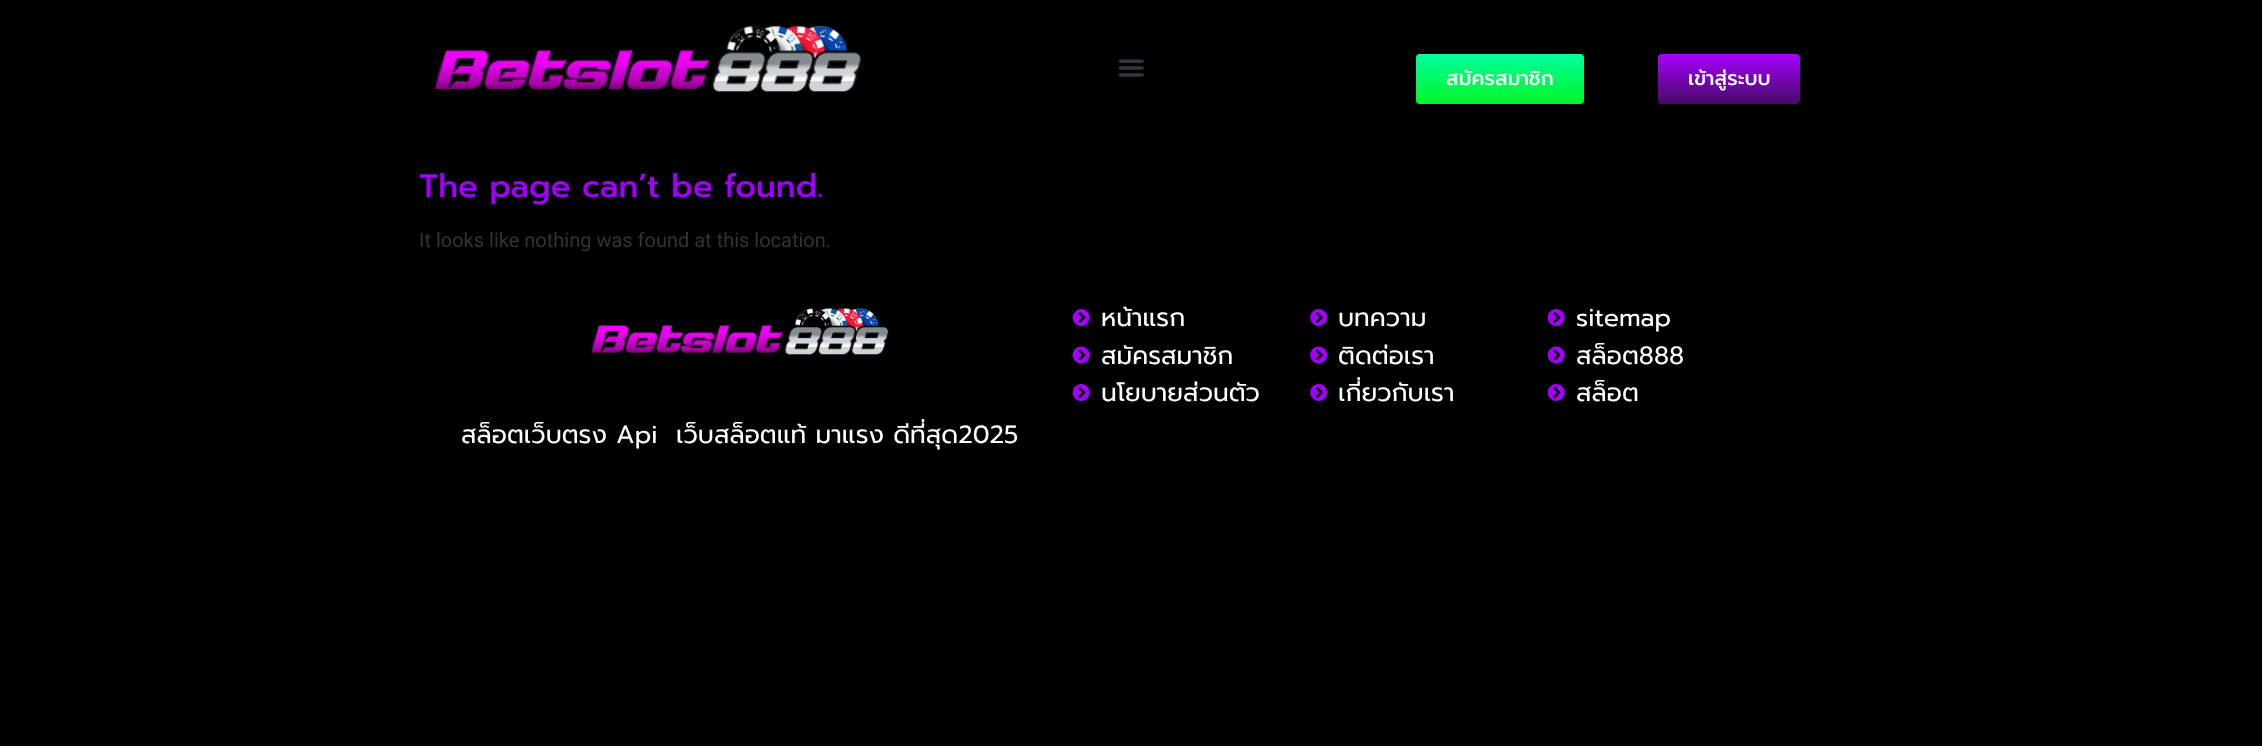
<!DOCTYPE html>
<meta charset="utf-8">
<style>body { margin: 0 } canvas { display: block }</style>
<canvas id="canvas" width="2262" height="746"></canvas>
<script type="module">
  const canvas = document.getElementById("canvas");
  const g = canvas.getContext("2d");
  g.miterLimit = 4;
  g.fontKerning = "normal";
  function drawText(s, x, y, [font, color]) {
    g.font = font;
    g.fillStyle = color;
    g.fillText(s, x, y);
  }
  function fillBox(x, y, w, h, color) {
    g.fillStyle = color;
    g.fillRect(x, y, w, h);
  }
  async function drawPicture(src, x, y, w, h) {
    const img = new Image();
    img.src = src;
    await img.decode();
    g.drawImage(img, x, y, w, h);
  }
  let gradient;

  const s1 = ["500 20px Prompt", "#FFFFFF"];
  const s2 = ["500 32.5px Prompt", "#A100F7"];
  const s3 = ["20px Roboto", "#333333"];
  const s4 = ["25px Prompt", "#FFFFFF"];

  fillBox(0, 0, 2262, 746, "#000000");
  await drawPicture("pic1.png", 434, 26, 429, 66);
  await drawPicture("pic2.png", 1118, 59, 26, 18);
  gradient = g.createLinearGradient(1500, 54, 1500, 104);
  gradient.addColorStop(0, "#00FF9F");
  gradient.addColorStop(1, "#00F525");
  g.fillStyle = gradient;
  g.beginPath();
  g.roundRect(1416, 54, 168, 50, 4);
  g.fill();
  drawText("สมัครสมาชิก", 1446, 85, s1);
  gradient = g.createLinearGradient(1729, 54, 1729, 104);
  gradient.addColorStop(0, "#A700FF");
  gradient.addColorStop(1, "#460A66");
  g.fillStyle = gradient;
  g.beginPath();
  g.roundRect(1658, 54, 142, 50, 4);
  g.fill();
  drawText("เข้าสู่ระบบ", 1688, 85, s1);
  drawText("The page can’t be found.", 419, 197, s2);
  drawText("It looks like nothing was found at this location.", 419, 247, s3);
  await drawPicture("pic3.png", 1073, 309, 17, 17);
  drawText("หน้าแรก", 1101, 326, s4);
  await drawPicture("pic4.png", 1073, 346, 17, 18);
  drawText("สมัครสมาชิก", 1101, 364, s4);
  await drawPicture("pic3.png", 1073, 384, 17, 17);
  drawText("นโยบายส่วนตัว", 1101, 401, s4);
  await drawPicture("pic5.png", 1310, 309, 18, 17);
  drawText("บทความ", 1338, 326, s4);
  drawText("ติดต่อเรา", 1338, 364, s4);
  await drawPicture("pic6.png", 1310, 346, 18, 18);
  await drawPicture("pic5.png", 1310, 384, 18, 17);
  drawText("เกี่ยวกับเรา", 1338, 401, s4);
  await drawPicture("pic3.png", 1548, 309, 17, 17);
  drawText("sitemap", 1576, 326, s4);
  await drawPicture("pic4.png", 1548, 346, 17, 18);
  drawText("สล็อต888", 1576, 364, s4);
  await drawPicture("pic3.png", 1548, 384, 17, 17);
  drawText("สล็อต", 1576, 401, s4);
  await drawPicture("pic7.png", 591, 308, 298, 47);
  drawText("สล็อตเว็บตรง Api  เว็บสล็อตแท้ มาแรง ดีที่สุด2025", 461, 443, s4);
</script>
